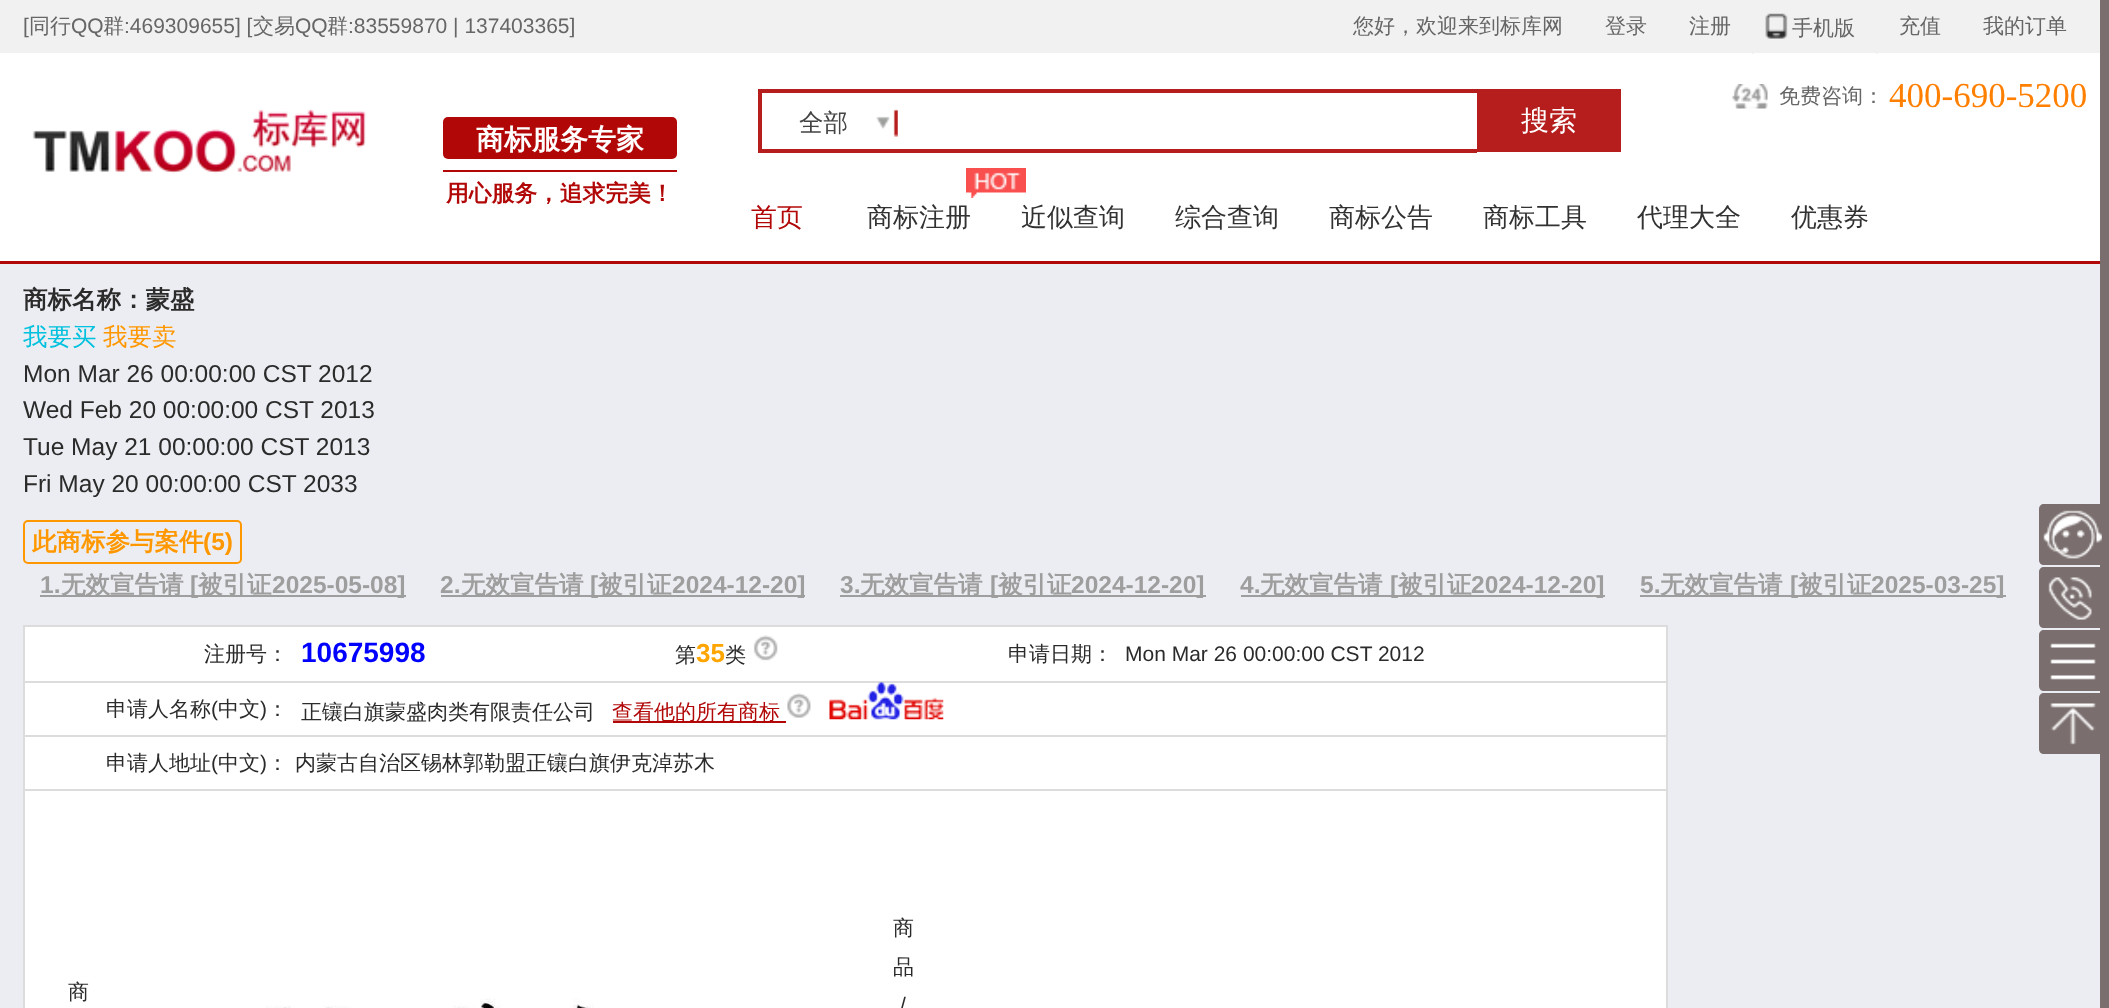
<!DOCTYPE html>
<meta charset="utf-8">
<style>body { margin: 0 } canvas { display: block }</style>
<canvas id="canvas" width="2109" height="1008"></canvas>
<script type="module">
  const canvas = document.getElementById("canvas");
  const g = canvas.getContext("2d");
  g.miterLimit = 4;
  g.fontKerning = "normal";
  function drawText(s, x, y, [font, color]) {
    g.font = font;
    g.fillStyle = color;
    g.fillText(s, x, y);
  }
  function fillBox(x, y, w, h, color) {
    g.fillStyle = color;
    g.fillRect(x, y, w, h);
  }
  function fillRounded(x, y, w, h, r, color) {
    g.fillStyle = color;
    g.beginPath();
    g.roundRect(x, y, w, h, r);
    g.fill();
  }
  async function drawPicture(src, x, y, w, h) {
    const img = new Image();
    img.src = src;
    await img.decode();
    g.drawImage(img, x, y, w, h);
  }

  const s1 = ["21px Liberation Sans", "#666666"];
  const s2 = ["500 21px WenQuanYi Zen Hei", "#666666"];
  const s3 = ["35px Liberation Serif", "#FF7F00"];
  const s4 = ["500 24.5px WenQuanYi Zen Hei", "#444444"];
  const s5 = ["500 28px WenQuanYi Zen Hei", "#FFFFFF"];
  const s6 = ["bold 28px WenQuanYi Zen Hei", "#FFFFFF"];
  const s7 = ["bold 22.75px WenQuanYi Zen Hei", "#B20707"];
  const s8 = ["500 26px WenQuanYi Zen Hei", "#B20707"];
  const s9 = ["500 26px WenQuanYi Zen Hei", "#323232"];
  const s10 = ["bold 24.5px WenQuanYi Zen Hei", "#2B2B2B"];
  const s11 = ["500 24.5px WenQuanYi Zen Hei", "#00C1DE"];
  const s12 = ["500 24.5px WenQuanYi Zen Hei", "#FF9800"];
  const s13 = ["24.5px Liberation Sans", "#2B2B2B"];
  const s14 = ["bold 24.5px WenQuanYi Zen Hei", "#FF9800"];
  const s15 = ["bold 24.5px Liberation Sans", "#FF9800"];
  const s16 = ["bold 24.5px Liberation Sans", "#9E9E9E"];
  const s17 = ["bold 24.5px WenQuanYi Zen Hei", "#9E9E9E"];
  const s18 = ["500 21px WenQuanYi Zen Hei", "#2B2B2B"];
  const s19 = ["bold 28px Liberation Sans", "#0000FF"];
  const s20 = ["bold 26px Liberation Sans", "#FFA500"];
  const s21 = ["21px Liberation Sans", "#2B2B2B"];
  const s22 = ["500 21px WenQuanYi Zen Hei", "#B20707"];

  fillBox(0, 0, 2109, 1008, "#FFFFFF");
  fillBox(0, 0, 2100, 53, "#F1F1F1");
  drawText("[", 23, 33, s1);
  drawText("同行", 29, 33, s2);
  drawText("QQ", 71, 33, s1);
  drawText("群", 103, 33, s2);
  drawText(":469309655] [", 124, 33, s1);
  drawText("交易", 253, 33, s2);
  drawText("QQ", 295, 33, s1);
  drawText("群", 327, 33, s2);
  drawText(":83559870 | 137403365]", 348, 33, s1);
  drawText("您好，欢迎来到标库网", 1353, 33, s2);
  drawText("登录", 1605, 33, s2);
  drawText("注册", 1689, 33, s2);
  await drawPicture("pic1.png", 1765, 13, 23, 26);
  fillBox(1876, 53, 2, 1, "#F1F1F1");
  fillBox(1752, 53, 2, 1, "#F1F1F1");
  drawText("手机版", 1792, 35, s2);
  drawText("充值", 1899, 33, s2);
  drawText("我的订单", 1983, 33, s2);
  fillBox(2100, 0, 9, 1008, "#7A6E6E");
  fillBox(0, 264, 2100, 744, "#ECEDF2");
  g.fillStyle = "#7A6E6E";
  g.beginPath();
  g.moveTo(2044, 504);
  g.lineTo(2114, 504);
  g.lineTo(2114, 565);
  g.lineTo(2044, 565);
  g.bezierCurveTo(2041, 565, 2039, 563, 2039, 560);
  g.lineTo(2039, 509);
  g.bezierCurveTo(2039, 506, 2041, 504, 2044, 504);
  g.closePath();
  g.fill();
  await drawPicture("pic2.png", 2043, 510, 59, 49);
  g.beginPath();
  g.moveTo(2044, 567);
  g.lineTo(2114, 567);
  g.lineTo(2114, 628);
  g.lineTo(2044, 628);
  g.bezierCurveTo(2041, 628, 2039, 626, 2039, 623);
  g.lineTo(2039, 572);
  g.bezierCurveTo(2039, 569, 2041, 567, 2044, 567);
  g.closePath();
  g.fill();
  await drawPicture("pic3.png", 2048, 577, 44, 43);
  g.beginPath();
  g.moveTo(2044, 630);
  g.lineTo(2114, 630);
  g.lineTo(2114, 691);
  g.lineTo(2044, 691);
  g.bezierCurveTo(2041, 691, 2039, 689, 2039, 686);
  g.lineTo(2039, 635);
  g.bezierCurveTo(2039, 632, 2041, 630, 2044, 630);
  g.closePath();
  g.fill();
  await drawPicture("pic4.png", 2050, 643, 46, 37);
  g.beginPath();
  g.moveTo(2044, 693);
  g.lineTo(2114, 693);
  g.lineTo(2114, 754);
  g.lineTo(2044, 754);
  g.bezierCurveTo(2041, 754, 2039, 752, 2039, 749);
  g.lineTo(2039, 698);
  g.bezierCurveTo(2039, 695, 2041, 693, 2044, 693);
  g.closePath();
  g.fill();
  await drawPicture("pic5.png", 2050, 703, 46, 42);
  await drawPicture("pic6.png", 1732, 84, 36, 25);
  drawText("免费咨询：", 1779, 103, s2);
  drawText("400-690-5200", 1889, 107, s3);
  fillBox(758, 89, 719, 4, "#B61D1D");
  fillBox(758, 149, 719, 4, "#B61D1D");
  fillBox(758, 89, 4, 63, "#B61D1D");
  drawText("全部", 799, 131, s4);
  await drawPicture("pic7.png", 876, 109, 22, 28);
  fillBox(1477, 89, 144, 63, "#B61D1D");
  drawText("搜索", 1521, 130, s5);
  await drawPicture("pic8.png", 32, 109, 334, 65);
  fillRounded(443, 117, 234, 42, 5, "#B20707");
  drawText("商标服务专家", 476, 149, s6);
  fillBox(443, 170, 234, 2, "#B20707");
  drawText("用心服务，追求完美！", 446, 201, s7);
  drawText("首页", 751, 226, s8);
  await drawPicture("pic9.png", 966, 168, 60, 30);
  drawText("商标注册", 867, 226, s9);
  drawText("近似查询", 1021, 226, s9);
  drawText("综合查询", 1175, 226, s9);
  drawText("商标公告", 1329, 226, s9);
  drawText("商标工具", 1483, 226, s9);
  drawText("代理大全", 1637, 226, s9);
  drawText("优惠券", 1791, 226, s9);
  fillBox(0, 261, 2100, 3, "#B20707");
  drawText("商标名称：蒙盛", 23, 308, s10);
  drawText("我要买", 23, 345, s11);
  drawText("我要卖", 103, 345, s12);
  drawText("Mon Mar 26 00:00:00 CST 2012", 23, 382, s13);
  drawText("Wed Feb 20 00:00:00 CST 2013", 23, 418, s13);
  drawText("Tue May 21 00:00:00 CST 2013", 23, 455, s13);
  drawText("Fri May 20 00:00:00 CST 2033", 23, 492, s13);
  g.beginPath();
  g.roundRect(24, 521, 217, 42, 4);
  g.strokeStyle = "#FF9800";
  g.lineWidth = 2;
  g.stroke();
  drawText("此商标参与案件", 32, 550, s14);
  drawText("(5)", 203, 550, s15);
  drawText("1.", 40, 593, s16);
  fillBox(40, 595, 366, 2, "#9E9E9E");
  drawText("无效宣告请", 61, 593, s17);
  drawText("[", 190, 593, s16);
  drawText("被引证", 198, 593, s17);
  drawText("2025-05-08]", 272, 593, s16);
  drawText("2.", 440, 593, s16);
  fillBox(441, 595, 364, 2, "#9E9E9E");
  drawText("无效宣告请", 461, 593, s17);
  drawText("[", 590, 593, s16);
  drawText("被引证", 598, 593, s17);
  drawText("2024-12-20]", 672, 593, s16);
  drawText("3.", 840, 593, s16);
  fillBox(840, 595, 366, 2, "#9E9E9E");
  drawText("无效宣告请", 860, 593, s17);
  drawText("[", 990, 593, s16);
  drawText("被引证", 998, 593, s17);
  drawText("2024-12-20]", 1071, 593, s16);
  drawText("4.", 1240, 593, s16);
  fillBox(1241, 595, 364, 2, "#9E9E9E");
  drawText("无效宣告请", 1260, 593, s17);
  drawText("[", 1390, 593, s16);
  drawText("被引证", 1398, 593, s17);
  drawText("2024-12-20]", 1471, 593, s16);
  drawText("5.", 1640, 593, s16);
  fillBox(1640, 595, 366, 2, "#9E9E9E");
  drawText("无效宣告请", 1660, 593, s17);
  drawText("[", 1790, 593, s16);
  drawText("被引证", 1798, 593, s17);
  drawText("2025-03-25]", 1871, 593, s16);
  fillBox(23, 625, 1645, 383, "#DCDCDC");
  fillBox(25, 627, 1641, 54, "#FFFFFF");
  drawText("注册号：", 204, 661, s18);
  drawText("10675998", 301, 662, s19);
  drawText("第", 675, 662, s18);
  drawText("35", 696, 662, s20);
  drawText("类", 725, 662, s18);
  await drawPicture("pic10.png", 753, 635, 25, 26);
  drawText("申请日期：", 1008, 661, s18);
  drawText("Mon Mar 26 00:00:00 CST 2012", 1125, 661, s21);
  fillBox(25, 683, 1641, 52, "#FFFFFF");
  drawText("申请人名称", 106, 716, s18);
  drawText("(", 211, 716, s21);
  drawText("中文", 218, 716, s18);
  drawText(")", 260, 716, s21);
  drawText("：", 267, 716, s18);
  drawText("正镶白旗蒙盛肉类有限责任公司", 301, 719, s18);
  fillBox(613, 721, 173, 2, "#B20707");
  drawText("查看他的所有商标", 612, 719, s22);
  await drawPicture("pic11.png", 787, 693, 24, 25);
  await drawPicture("pic12.png", 829, 682, 115, 38);
  fillBox(25, 737, 1641, 52, "#FFFFFF");
  drawText("申请人地址", 106, 770, s18);
  drawText("(", 211, 770, s21);
  drawText("中文", 218, 770, s18);
  drawText(")", 260, 770, s21);
  drawText("：", 267, 770, s18);
  drawText("内蒙古自治区锡林郭勒盟正镶白旗伊克淖苏木", 295, 770, s18);
  fillBox(25, 791, 1641, 217, "#FFFFFF");
  drawText("商", 68, 999, s18);
  await drawPicture("pic13.png", 266, 998, 328, 10);
  drawText("商", 893, 935, s18);
  drawText("品", 893, 974, s18);
  drawText("/", 900, 1012, s21);
</script>
